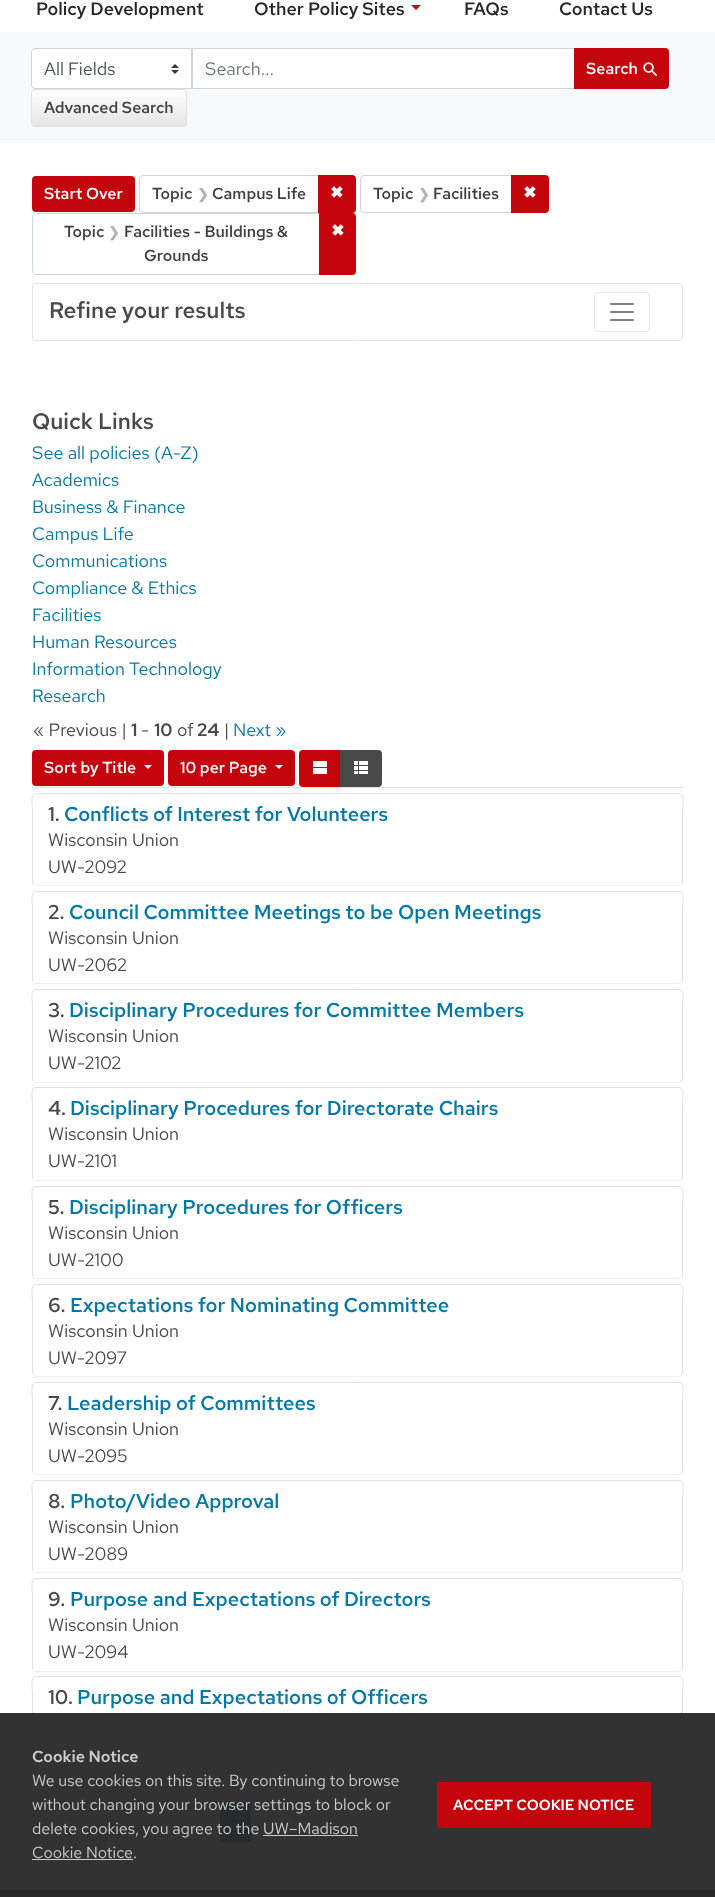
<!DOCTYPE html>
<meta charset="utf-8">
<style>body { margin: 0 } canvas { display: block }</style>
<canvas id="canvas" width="715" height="1897"></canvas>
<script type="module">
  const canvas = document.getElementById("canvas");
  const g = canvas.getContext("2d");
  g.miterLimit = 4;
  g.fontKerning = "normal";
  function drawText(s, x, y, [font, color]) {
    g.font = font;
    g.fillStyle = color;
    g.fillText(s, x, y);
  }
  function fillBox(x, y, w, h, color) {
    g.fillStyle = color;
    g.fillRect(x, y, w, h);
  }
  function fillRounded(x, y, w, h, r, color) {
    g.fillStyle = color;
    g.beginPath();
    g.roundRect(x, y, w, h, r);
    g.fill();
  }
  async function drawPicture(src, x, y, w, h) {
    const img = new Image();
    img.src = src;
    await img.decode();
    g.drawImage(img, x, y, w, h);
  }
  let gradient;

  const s1 = ["600 18px Red Hat Text", "#282728"];
  const s2 = ["18px Red Hat Text", "#495057"];
  const s3 = ["18px Red Hat Text", "#6C757D"];
  const s4 = ["600 16px Red Hat Text", "#FFFFFF"];
  const s5 = ["600 16px Red Hat Text", "#404040"];
  const s6 = ["bold 14px DejaVu Sans", "#ADB5BD"];
  const s7 = ["bold 16px DejaVu Sans", "#FFFFFF"];
  const s8 = ["500 22.5px Red Hat Text", "#494949"];
  const s9 = ["18px Red Hat Text", "#0479A8"];
  const s10 = ["18px Red Hat Text", "#494949"];
  const s11 = ["600 18px 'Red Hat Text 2'", "#494949"];
  const s12 = ["500 20px Red Hat Text", "#494949"];
  const s13 = ["500 20px Red Hat Text", "#0479A8"];
  const s14 = ["600 16px 'Red Hat Text 2'", "#CCCCCC"];
  const s15 = ["16px Red Hat Text", "#CCCCCC"];
  const s16 = ["600 14.75px 'Red Hat Text 2'", "#FFFFFF"];

  fillBox(0, 0, 715, 1897, "#FFFFFF");
  drawText("Policy Development", 36, 15, s1);
  drawText("Other Policy Sites", 254, 15, s1);
  g.fillStyle = "#C5050C";
  g.beginPath();
  g.moveTo(411, 5);
  g.lineTo(416, 10);
  g.lineTo(421, 5);
  g.closePath();
  g.fill();
  drawText("FAQs", 464, 15, s1);
  drawText("Contact Us", 559, 15, s1);
  fillBox(0, 32, 715, 111, "#F8F9FA");
  g.fillStyle = "#FFFFFF";
  g.beginPath();
  g.roundRect(31, 48, 161, 41, [4, 0, 0, 4]);
  g.fill();
  await drawPicture("pic1.png", 171, 64, 8, 10);
  g.beginPath();
  g.roundRect(31.5, 48.5, 160, 40, [3.5, 0, 0, 3.5]);
  g.strokeStyle = "#CED4DA";
  g.stroke();
  drawText("All Fields", 44, 75, s2);
  g.fillStyle = "#FFFFFF";
  g.beginPath();
  g.rect(192.5, 48.5, 382, 40);
  g.fill();
  g.stroke();
  drawText("Search...", 205, 75, s3);
  g.fillStyle = "#C5050C";
  g.beginPath();
  g.roundRect(574, 48, 95, 41, [0, 4, 4, 0]);
  g.fill();
  drawText("Search", 586, 74, s4);
  await drawPicture("pic2.png", 643, 62, 14, 14);
  g.save();
  g.beginPath();
  g.roundRect(31, 89, 156, 38, 4);
  g.clip();
  gradient = g.createLinearGradient(109, 90, 109, 126);
  gradient.addColorStop(0, "#FFFFFF");
  gradient.addColorStop(1, "#E5E5E5");
  g.fillStyle = gradient;
  g.fillRect(31, 90, 156, 36);
  g.restore();
  g.beginPath();
  g.roundRect(31.5, 89.5, 155, 37, 3.5);
  g.strokeStyle = "#E0E0E0";
  g.stroke();
  drawText("Advanced Search", 44, 113, s5);
  fillRounded(32, 176, 103, 36, 4, "#C5050C");
  drawText("Start Over", 44, 199, s4);
  g.beginPath();
  g.roundRect(139.5, 175.5, 179, 37, [3.5, 0, 0, 3.5]);
  g.strokeStyle = "#CED4DA";
  g.stroke();
  drawText("Topic", 152, 199, s5);
  drawText("❯", 197, 199, s6);
  drawText("Campus Life", 212, 199, s5);
  g.fillStyle = "#C5050C";
  g.beginPath();
  g.roundRect(318, 175, 38, 38, [0, 4, 4, 0]);
  g.fill();
  drawText("✖", 330, 198, s7);
  g.beginPath();
  g.roundRect(360.5, 175.5, 151, 37, [3.5, 0, 0, 3.5]);
  g.stroke();
  drawText("Topic", 373, 199, s5);
  drawText("❯", 418, 199, s6);
  drawText("Facilities", 433, 199, s5);
  g.fillStyle = "#C5050C";
  g.beginPath();
  g.roundRect(511, 175, 38, 38, [0, 4, 4, 0]);
  g.fill();
  drawText("✖", 523, 198, s7);
  g.beginPath();
  g.roundRect(32.5, 213.5, 287, 61, [3.5, 0, 0, 3.5]);
  g.stroke();
  drawText("Topic", 64, 237, s5);
  drawText("❯", 108, 237, s6);
  drawText("Facilities - Buildings &", 124, 237, s5);
  drawText("Grounds", 144, 261, s5);
  g.fillStyle = "#C5050C";
  g.beginPath();
  g.roundRect(319, 213, 37, 62, [0, 4, 4, 0]);
  g.fill();
  drawText("✖", 331, 236, s7);
  g.beginPath();
  g.roundRect(32.5, 283.5, 650, 57, 2.5);
  g.strokeStyle = "#E5E5E5";
  g.stroke();
  drawText("Refine your results", 49, 318, s8);
  g.beginPath();
  g.roundRect(594.5, 292.5, 55, 39, 3.5);
  g.strokeStyle = "#E6E6E6";
  g.stroke();
  await drawPicture("pic3.png", 610, 303, 24, 18);
  drawText("Quick Links", 32, 429, s8);
  drawText("See all policies (A-Z)", 32, 459, s9);
  drawText("Academics", 32, 486, s9);
  drawText("Business & Finance", 32, 513, s9);
  drawText("Campus Life", 32, 540, s9);
  drawText("Communications", 32, 567, s9);
  drawText("Compliance & Ethics", 32, 594, s9);
  drawText("Facilities", 32, 621, s9);
  drawText("Human Resources", 32, 648, s9);
  drawText("Information Technology", 32, 675, s9);
  drawText("Research", 32, 702, s9);
  fillBox(32, 787, 651, 1, "#DEE2E6");
  drawText("« Previous |", 33, 736, s10);
  drawText("1", 131, 736, s11);
  drawText("-", 141, 736, s10);
  drawText("10", 154, 736, s11);
  drawText("of", 177, 736, s10);
  drawText("24", 197, 736, s11);
  drawText("|", 224, 736, s10);
  drawText("Next »", 233, 736, s9);
  fillRounded(32, 750, 132, 36, 4, "#C5050C");
  drawText("Sort by Title", 44, 773, s4);
  g.beginPath();
  g.moveTo(144, 765);
  g.lineTo(152, 765);
  g.lineTo(148, 769);
  g.closePath();
  g.fill();
  fillRounded(168, 750, 127, 36, 4, "#C5050C");
  drawText("10 per Page", 180, 773, s4);
  g.beginPath();
  g.moveTo(275, 765);
  g.lineTo(283, 765);
  g.lineTo(279, 769);
  g.closePath();
  g.fill();
  g.fillStyle = "#C5050C";
  g.beginPath();
  g.roundRect(299, 750, 42, 37, [4, 0, 0, 4]);
  g.fill();
  await drawPicture("pic4.png", 313, 761, 14, 13);
  g.fillStyle = "#494949";
  g.beginPath();
  g.roundRect(340, 750, 42, 37, [0, 4, 4, 0]);
  g.fill();
  await drawPicture("pic5.png", 354, 761, 14, 13);
  g.beginPath();
  g.moveTo(681.5, 884.5);
  g.bezierCurveTo(681, 885, 680, 885.5, 679, 885.5);
  g.lineTo(36, 885.5);
  g.bezierCurveTo(35, 885.5, 34, 885, 33.5, 884.5);
  g.strokeStyle = "#DEE2E6";
  g.setLineDash([1, 1]);
  g.stroke();
  g.beginPath();
  g.moveTo(33.5, 884.5);
  g.lineTo(32.5, 882);
  g.lineTo(32.5, 811);
  g.bezierCurveTo(32.5, 804.5, 30, 793.5, 36, 793.5);
  g.lineTo(679, 793.5);
  g.bezierCurveTo(685, 793.5, 682.5, 804.5, 682.5, 811);
  g.lineTo(682.5, 882);
  g.lineTo(681.5, 884.5);
  g.strokeStyle = "#E0E0E0";
  g.setLineDash([]);
  g.stroke();
  drawText("1.", 48, 821, s12);
  drawText("Conflicts of Interest for Volunteers", 64, 821, s13);
  drawText("Wisconsin Union", 48, 846, s10);
  drawText("UW-2092", 48, 873, s10);
  g.beginPath();
  g.moveTo(681.5, 982.5);
  g.bezierCurveTo(681, 983, 680, 983.5, 679, 983.5);
  g.lineTo(36, 983.5);
  g.bezierCurveTo(35, 983.5, 34, 983, 33.5, 982.5);
  g.strokeStyle = "#DEE2E6";
  g.setLineDash([1, 1]);
  g.stroke();
  g.beginPath();
  g.moveTo(33.5, 982.5);
  g.lineTo(32.5, 980);
  g.lineTo(32.5, 909);
  g.bezierCurveTo(32.5, 902.5, 30, 891.5, 36, 891.5);
  g.lineTo(679, 891.5);
  g.bezierCurveTo(685, 891.5, 682.5, 902.5, 682.5, 909);
  g.lineTo(682.5, 980);
  g.lineTo(681.5, 982.5);
  g.strokeStyle = "#E0E0E0";
  g.setLineDash([]);
  g.stroke();
  drawText("2.", 48, 919, s12);
  drawText("Council Committee Meetings to be Open Meetings", 69, 919, s13);
  drawText("Wisconsin Union", 48, 944, s10);
  drawText("UW-2062", 48, 971, s10);
  g.beginPath();
  g.moveTo(681.5, 1081.5);
  g.bezierCurveTo(681, 1082, 680, 1082.5, 679, 1082.5);
  g.lineTo(36, 1082.5);
  g.bezierCurveTo(35, 1082.5, 34, 1082, 33.5, 1081.5);
  g.strokeStyle = "#DEE2E6";
  g.setLineDash([1, 1]);
  g.stroke();
  g.beginPath();
  g.moveTo(33.5, 1081.5);
  g.lineTo(32.5, 1079);
  g.lineTo(32.5, 1007.5);
  g.bezierCurveTo(32.5, 1000.5, 30, 989.5, 36, 989.5);
  g.lineTo(679, 989.5);
  g.bezierCurveTo(685, 989.5, 682.5, 1000.5, 682.5, 1007.5);
  g.lineTo(682.5, 1079);
  g.lineTo(681.5, 1081.5);
  g.strokeStyle = "#E0E0E0";
  g.setLineDash([]);
  g.stroke();
  drawText("3.", 48, 1017, s12);
  drawText("Disciplinary Procedures for Committee Members", 69, 1017, s13);
  drawText("Wisconsin Union", 48, 1042, s10);
  drawText("UW-2102", 48, 1069, s10);
  g.beginPath();
  g.moveTo(681.5, 1179.5);
  g.bezierCurveTo(681, 1180, 680, 1180.5, 679, 1180.5);
  g.lineTo(36, 1180.5);
  g.bezierCurveTo(35, 1180.5, 34, 1180, 33.5, 1179.5);
  g.strokeStyle = "#DEE2E6";
  g.setLineDash([1, 1]);
  g.stroke();
  g.beginPath();
  g.moveTo(33.5, 1179.5);
  g.lineTo(32.5, 1177);
  g.lineTo(32.5, 1105.5);
  g.bezierCurveTo(32.5, 1098.5, 30, 1087.5, 36, 1087.5);
  g.lineTo(679, 1087.5);
  g.bezierCurveTo(685, 1087.5, 682.5, 1098.5, 682.5, 1105.5);
  g.lineTo(682.5, 1177);
  g.lineTo(681.5, 1179.5);
  g.strokeStyle = "#E0E0E0";
  g.setLineDash([]);
  g.stroke();
  drawText("4.", 48, 1115, s12);
  drawText("Disciplinary Procedures for Directorate Chairs", 70, 1115, s13);
  drawText("Wisconsin Union", 48, 1140, s10);
  drawText("UW-2101", 48, 1167, s10);
  g.beginPath();
  g.moveTo(681.5, 1277.5);
  g.bezierCurveTo(681, 1278, 680, 1278.5, 679, 1278.5);
  g.lineTo(36, 1278.5);
  g.bezierCurveTo(35, 1278.5, 34, 1278, 33.5, 1277.5);
  g.strokeStyle = "#DEE2E6";
  g.setLineDash([1, 1]);
  g.stroke();
  g.beginPath();
  g.moveTo(33.5, 1277.5);
  g.lineTo(32.5, 1275);
  g.lineTo(32.5, 1204);
  g.bezierCurveTo(32.5, 1197.5, 30, 1186.5, 36, 1186.5);
  g.lineTo(679, 1186.5);
  g.bezierCurveTo(685, 1186.5, 682.5, 1197.5, 682.5, 1204);
  g.lineTo(682.5, 1275);
  g.lineTo(681.5, 1277.5);
  g.strokeStyle = "#E0E0E0";
  g.setLineDash([]);
  g.stroke();
  drawText("5.", 48, 1214, s12);
  drawText("Disciplinary Procedures for Officers", 69, 1214, s13);
  drawText("Wisconsin Union", 48, 1239, s10);
  drawText("UW-2100", 48, 1266, s10);
  g.beginPath();
  g.moveTo(681.5, 1375.5);
  g.bezierCurveTo(681, 1376, 680, 1376.5, 679, 1376.5);
  g.lineTo(36, 1376.5);
  g.bezierCurveTo(35, 1376.5, 34, 1376, 33.5, 1375.5);
  g.strokeStyle = "#DEE2E6";
  g.setLineDash([1, 1]);
  g.stroke();
  g.beginPath();
  g.moveTo(33.5, 1375.5);
  g.lineTo(32.5, 1373);
  g.lineTo(32.5, 1302);
  g.bezierCurveTo(32.5, 1295.5, 30, 1284.5, 36, 1284.5);
  g.lineTo(679, 1284.5);
  g.bezierCurveTo(685, 1284.5, 682.5, 1295.5, 682.5, 1302);
  g.lineTo(682.5, 1373);
  g.lineTo(681.5, 1375.5);
  g.strokeStyle = "#E0E0E0";
  g.setLineDash([]);
  g.stroke();
  drawText("6.", 48, 1312, s12);
  drawText("Expectations for Nominating Committee", 70, 1312, s13);
  drawText("Wisconsin Union", 48, 1337, s10);
  drawText("UW-2097", 48, 1364, s10);
  g.beginPath();
  g.moveTo(681.5, 1473.5);
  g.bezierCurveTo(681, 1474, 680, 1474.5, 679, 1474.5);
  g.lineTo(36, 1474.5);
  g.bezierCurveTo(35, 1474.5, 34, 1474, 33.5, 1473.5);
  g.strokeStyle = "#DEE2E6";
  g.setLineDash([1, 1]);
  g.stroke();
  g.beginPath();
  g.moveTo(33.5, 1473.5);
  g.lineTo(32.5, 1471);
  g.lineTo(32.5, 1400);
  g.bezierCurveTo(32.5, 1393.5, 30, 1382.5, 36, 1382.5);
  g.lineTo(679, 1382.5);
  g.bezierCurveTo(685, 1382.5, 682.5, 1393.5, 682.5, 1400);
  g.lineTo(682.5, 1471);
  g.lineTo(681.5, 1473.5);
  g.strokeStyle = "#E0E0E0";
  g.setLineDash([]);
  g.stroke();
  drawText("7.", 48, 1410, s12);
  drawText("Leadership of Committees", 67, 1410, s13);
  drawText("Wisconsin Union", 48, 1435, s10);
  drawText("UW-2095", 48, 1462, s10);
  g.beginPath();
  g.moveTo(681.5, 1571.5);
  g.bezierCurveTo(681, 1572, 680, 1572.5, 679, 1572.5);
  g.lineTo(36, 1572.5);
  g.bezierCurveTo(35, 1572.5, 34, 1572, 33.5, 1571.5);
  g.strokeStyle = "#DEE2E6";
  g.setLineDash([1, 1]);
  g.stroke();
  g.beginPath();
  g.moveTo(33.5, 1571.5);
  g.lineTo(32.5, 1569);
  g.lineTo(32.5, 1498);
  g.bezierCurveTo(32.5, 1491.5, 30, 1480.5, 36, 1480.5);
  g.lineTo(679, 1480.5);
  g.bezierCurveTo(685, 1480.5, 682.5, 1491.5, 682.5, 1498);
  g.lineTo(682.5, 1569);
  g.lineTo(681.5, 1571.5);
  g.strokeStyle = "#E0E0E0";
  g.setLineDash([]);
  g.stroke();
  drawText("8.", 48, 1508, s12);
  drawText("Photo/Video Approval", 70, 1508, s13);
  drawText("Wisconsin Union", 48, 1533, s10);
  drawText("UW-2089", 48, 1560, s10);
  g.beginPath();
  g.moveTo(681.5, 1670.5);
  g.bezierCurveTo(681, 1671, 680, 1671.5, 679, 1671.5);
  g.lineTo(36, 1671.5);
  g.bezierCurveTo(35, 1671.5, 34, 1671, 33.5, 1670.5);
  g.strokeStyle = "#DEE2E6";
  g.setLineDash([1, 1]);
  g.stroke();
  g.beginPath();
  g.moveTo(33.5, 1670.5);
  g.lineTo(32.5, 1668);
  g.lineTo(32.5, 1596.5);
  g.bezierCurveTo(32.5, 1589.5, 30, 1578.5, 36, 1578.5);
  g.lineTo(679, 1578.5);
  g.bezierCurveTo(685, 1578.5, 682.5, 1589.5, 682.5, 1596.5);
  g.lineTo(682.5, 1668);
  g.lineTo(681.5, 1670.5);
  g.strokeStyle = "#E0E0E0";
  g.setLineDash([]);
  g.stroke();
  drawText("9.", 48, 1606, s12);
  drawText("Purpose and Expectations of Directors", 70, 1606, s13);
  drawText("Wisconsin Union", 48, 1631, s10);
  drawText("UW-2094", 48, 1658, s10);
  g.beginPath();
  g.moveTo(681.5, 1768.5);
  g.bezierCurveTo(681, 1769, 680, 1769.5, 679, 1769.5);
  g.lineTo(36, 1769.5);
  g.bezierCurveTo(35, 1769.5, 34, 1769, 33.5, 1768.5);
  g.strokeStyle = "#DEE2E6";
  g.setLineDash([1, 1]);
  g.stroke();
  g.beginPath();
  g.moveTo(33.5, 1768.5);
  g.lineTo(32.5, 1766);
  g.lineTo(32.5, 1694.5);
  g.bezierCurveTo(32.5, 1687.5, 30, 1676.5, 36, 1676.5);
  g.lineTo(679, 1676.5);
  g.bezierCurveTo(685, 1676.5, 682.5, 1687.5, 682.5, 1694.5);
  g.lineTo(682.5, 1766);
  g.lineTo(681.5, 1768.5);
  g.strokeStyle = "#E0E0E0";
  g.setLineDash([]);
  g.stroke();
  drawText("10.", 48, 1704, s12);
  drawText("Purpose and Expectations of Officers", 77, 1704, s13);
  g.beginPath();
  g.roundRect(32.5, 1802.5, 109, 39, [3.5, 0, 0, 3.5]);
  g.strokeStyle = "#DEE2E6";
  g.stroke();
  g.strokeRect(141.5, 1802.5, 79, 39);
  g.strokeRect(250.5, 1802.5, 35, 39);
  fillBox(220, 1802, 31, 40, "#0479A8");
  g.fillStyle = "#FFFFFF";
  g.beginPath();
  g.roundRect(285.5, 1802.5, 36, 39, [0, 3.5, 3.5, 0]);
  g.fill();
  g.stroke();
  fillBox(0, 1890, 715, 7, "#373737");
  fillBox(0, 1713, 715, 184, "rgba(40, 39, 40, 0.95)");
  drawText("Cookie Notice", 32, 1762, s14);
  drawText("We use cookies on this site. By continuing to browse", 32, 1786, s15);
  drawText("without changing your browser settings to block or", 32, 1810, s15);
  drawText("delete cookies, you agree to the UW–Madison", 32, 1834, s15);
  drawText("Cookie Notice", 32, 1858, s15);
  fillBox(263, 1835, 95, 1, "#CCCCCC");
  fillBox(32, 1859, 101, 1, "#CCCCCC");
  drawText(".", 133, 1858, s15);
  fillRounded(437, 1782, 214, 46, 2, "#C5050C");
  drawText("ACCEPT COOKIE NOTICE", 453, 1810, s16);
</script>
